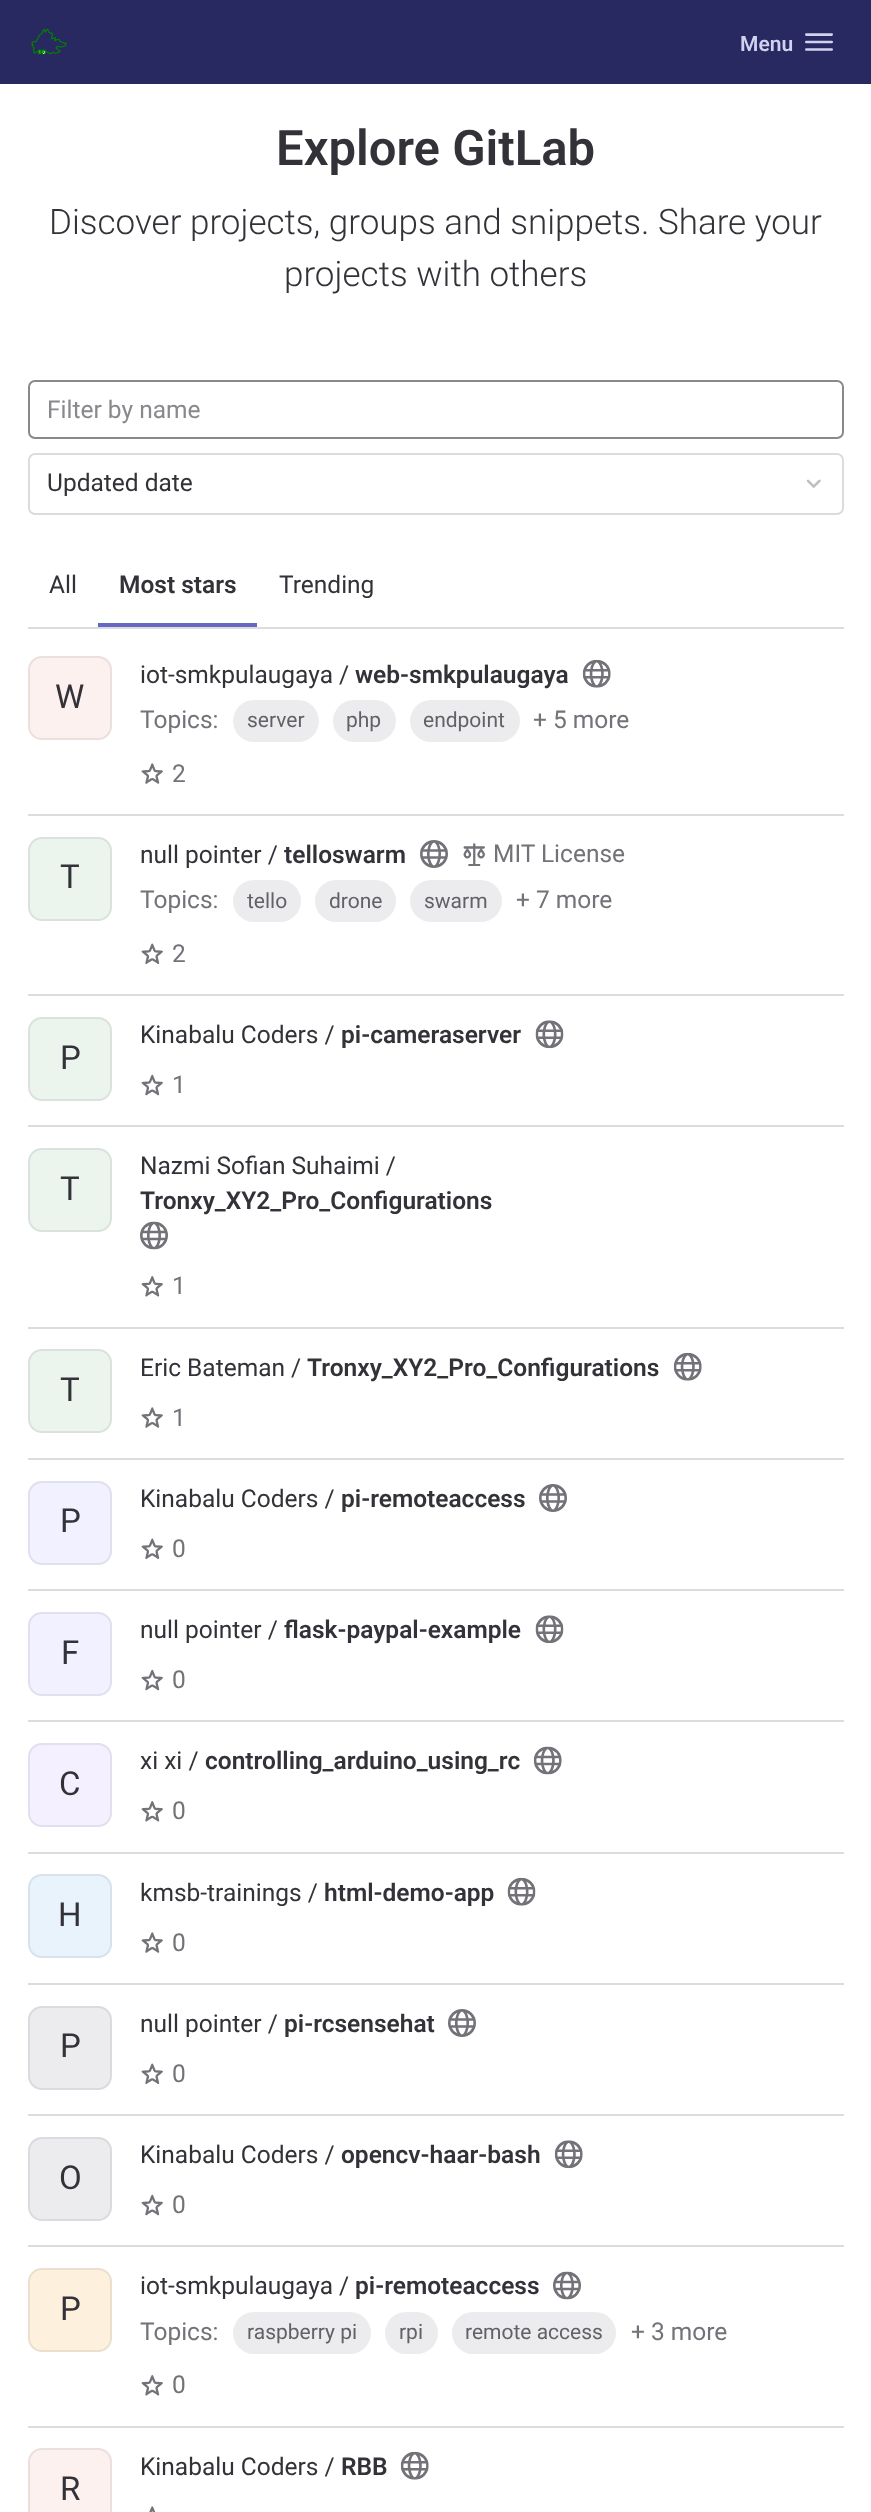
<!DOCTYPE html>
<meta charset="utf-8">
<style>body { margin: 0 } canvas { display: block }</style>
<canvas id="canvas" width="871" height="2512"></canvas>
<script type="module">
  const canvas = document.getElementById("canvas");
  const g = canvas.getContext("2d");
  g.miterLimit = 4;
  g.fontKerning = "normal";
  function drawText(s, x, y, [font, color]) {
    g.font = font;
    g.fillStyle = color;
    g.fillText(s, x, y);
  }
  function fillBox(x, y, w, h, color) {
    g.fillStyle = color;
    g.fillRect(x, y, w, h);
  }
  function fillRounded(x, y, w, h, r, color) {
    g.fillStyle = color;
    g.beginPath();
    g.roundRect(x, y, w, h, r);
    g.fill();
  }
  async function drawPicture(src, x, y, w, h) {
    const img = new Image();
    img.src = src;
    await img.decode();
    g.drawImage(img, x, y, w, h);
  }

  const s1 = ["600 21px Roboto", "#D1D1F0"];
  const s2 = ["600 49px Roboto", "#333238"];
  const s3 = ["300 35px Roboto", "#333238"];
  const s4 = ["24.5px Roboto", "#89888D"];
  const s5 = ["24.5px Roboto", "#333238"];
  const s6 = ["600 24.5px Roboto", "#333238"];
  const s7 = ["33px Roboto", "#333238"];
  const s8 = ["24.5px Roboto", "#737278"];
  const s9 = ["21px Roboto", "#626168"];

  fillBox(0, 0, 871, 2512, "#FFFFFF");
  fillBox(0, 0, 871, 84, "#292961");
  await drawPicture("pic1.png", 31, 28, 36, 27);
  drawText("Menu", 740, 51, s1);
  await drawPicture("pic2.png", 805, 33, 28, 18);
  drawText("Explore GitLab", 276, 165, s2);
  drawText("Discover projects, groups and snippets. Share your", 49, 234, s3);
  drawText("projects with others", 284, 286, s3);
  fillBox(28, 627, 816, 2, "#DCDCDE");
  g.beginPath();
  g.roundRect(29, 381, 814, 57, 6);
  g.strokeStyle = "#89888D";
  g.lineWidth = 2;
  g.stroke();
  drawText("Filter by name", 47, 418, s4);
  g.beginPath();
  g.roundRect(29, 454, 814, 60, 6);
  g.strokeStyle = "#DCDCDE";
  g.stroke();
  drawText("Updated date", 47, 491, s5);
  await drawPicture("pic3.png", 806, 479, 15, 9);
  drawText("All", 49, 593, s5);
  fillBox(98, 623, 159, 4, "#6666C4");
  drawText("Most stars", 119, 593, s6);
  drawText("Trending", 279, 593, s5);
  fillBox(28, 814, 816, 2, "#DCDCDE");
  fillRounded(28, 656, 84, 84, 14, "#FCF1EF");
  g.beginPath();
  g.roundRect(29, 657, 82, 82, 13);
  g.strokeStyle = "rgba(31, 30, 36, 0.08)";
  g.stroke();
  drawText("W", 55, 708, s7);
  drawText("iot-smkpulaugaya /", 140, 683, s5);
  drawText("web-smkpulaugaya", 355, 683, s6);
  await drawPicture("pic4.png", 582, 659, 29, 29);
  drawText("Topics:", 140, 728, s8);
  fillRounded(233, 700, 86, 42, 21, "#ECECEF");
  drawText("server", 247, 727, s9);
  fillRounded(333, 700, 63, 42, 21, "#ECECEF");
  drawText("php", 346, 727, s9);
  fillRounded(410, 700, 110, 42, 21, "#ECECEF");
  drawText("endpoint", 423, 727, s9);
  drawText("+ 5 more", 533, 728, s8);
  await drawPicture("pic5.png", 141, 763, 22, 21);
  drawText("2", 172, 782, s8);
  fillBox(28, 994, 816, 2, "#DCDCDE");
  fillRounded(28, 837, 84, 84, 14, "#ECF4EE");
  g.beginPath();
  g.roundRect(29, 838, 82, 82, 13);
  g.stroke();
  drawText("T", 60, 888, s7);
  drawText("null pointer /", 140, 863, s5);
  drawText("telloswarm", 284, 863, s6);
  await drawPicture("pic6.png", 420, 840, 28, 28);
  await drawPicture("pic7.png", 463, 843, 22, 23);
  drawText("MIT License", 493, 862, s8);
  drawText("Topics:", 140, 908, s8);
  fillRounded(233, 880, 68, 42, 21, "#ECECEF");
  drawText("tello", 247, 908, s9);
  fillRounded(315, 880, 81, 42, 21, "#ECECEF");
  drawText("drone", 329, 908, s9);
  fillRounded(410, 880, 92, 42, 21, "#ECECEF");
  drawText("swarm", 424, 908, s9);
  drawText("+ 7 more", 516, 908, s8);
  await drawPicture("pic8.png", 141, 943, 22, 21);
  drawText("2", 172, 962, s8);
  fillBox(28, 1125, 816, 2, "#DCDCDE");
  fillRounded(28, 1017, 84, 84, 14, "#ECF4EE");
  g.beginPath();
  g.roundRect(29, 1018, 82, 82, 13);
  g.stroke();
  drawText("P", 60, 1069, s7);
  drawText("Kinabalu Coders /", 140, 1043, s5);
  drawText("pi-cameraserver", 341, 1043, s6);
  await drawPicture("pic9.png", 535, 1020, 29, 29);
  await drawPicture("pic10.png", 141, 1074, 22, 22);
  drawText("1", 172, 1093, s8);
  fillBox(28, 1327, 816, 2, "#DCDCDE");
  fillRounded(28, 1148, 84, 84, 14, "#ECF4EE");
  g.beginPath();
  g.roundRect(29, 1149, 82, 82, 13);
  g.stroke();
  drawText("T", 60, 1200, s7);
  drawText("Nazmi Sofian Suhaimi /", 140, 1174, s5);
  drawText("Tronxy_XY2_Pro_Configurations", 140, 1209, s6);
  await drawPicture("pic11.png", 140, 1221, 28, 29);
  await drawPicture("pic12.png", 141, 1276, 22, 21);
  drawText("1", 172, 1294, s8);
  fillBox(28, 1458, 816, 2, "#DCDCDE");
  fillRounded(28, 1349, 84, 84, 14, "#ECF4EE");
  g.beginPath();
  g.roundRect(29, 1350, 82, 82, 13);
  g.stroke();
  drawText("T", 60, 1401, s7);
  drawText("Eric Bateman /", 140, 1376, s5);
  drawText("Tronxy_XY2_Pro_Configurations", 307, 1376, s6);
  await drawPicture("pic4.png", 673, 1352, 29, 29);
  await drawPicture("pic5.png", 141, 1407, 22, 21);
  drawText("1", 172, 1426, s8);
  fillBox(28, 1589, 816, 2, "#DCDCDE");
  fillRounded(28, 1481, 84, 84, 14, "#F1F1FF");
  g.beginPath();
  g.roundRect(29, 1482, 82, 82, 13);
  g.stroke();
  drawText("P", 60, 1532, s7);
  drawText("Kinabalu Coders /", 140, 1507, s5);
  drawText("pi-remoteaccess", 341, 1507, s6);
  await drawPicture("pic6.png", 539, 1484, 28, 28);
  await drawPicture("pic8.png", 141, 1538, 22, 21);
  drawText("0", 172, 1557, s8);
  fillBox(28, 1720, 816, 2, "#DCDCDE");
  fillRounded(28, 1612, 84, 84, 14, "#F1F1FF");
  g.beginPath();
  g.roundRect(29, 1613, 82, 82, 13);
  g.stroke();
  drawText("F", 61, 1664, s7);
  drawText("null pointer /", 140, 1638, s5);
  drawText("flask-paypal-example", 284, 1638, s6);
  await drawPicture("pic9.png", 535, 1615, 29, 29);
  await drawPicture("pic10.png", 141, 1669, 22, 22);
  drawText("0", 172, 1688, s8);
  fillBox(28, 1852, 816, 2, "#DCDCDE");
  fillRounded(28, 1743, 84, 84, 14, "#F4F0FF");
  g.beginPath();
  g.roundRect(29, 1744, 82, 82, 13);
  g.stroke();
  drawText("C", 59, 1795, s7);
  drawText("xi xi /", 140, 1769, s5);
  drawText("controlling_arduino_using_rc", 205, 1769, s6);
  await drawPicture("pic13.png", 533, 1746, 29, 29);
  await drawPicture("pic12.png", 141, 1801, 22, 21);
  drawText("0", 172, 1819, s8);
  fillBox(28, 1983, 816, 2, "#DCDCDE");
  fillRounded(28, 1874, 84, 84, 14, "#E9F3FC");
  g.beginPath();
  g.roundRect(29, 1875, 82, 82, 13);
  g.stroke();
  drawText("H", 58, 1926, s7);
  drawText("kmsb-trainings /", 140, 1901, s5);
  drawText("html-demo-app", 324, 1901, s6);
  await drawPicture("pic14.png", 507, 1877, 29, 29);
  await drawPicture("pic5.png", 141, 1932, 22, 21);
  drawText("0", 172, 1951, s8);
  fillBox(28, 2114, 816, 2, "#DCDCDE");
  fillRounded(28, 2006, 84, 84, 14, "#ECECEF");
  g.beginPath();
  g.roundRect(29, 2007, 82, 82, 13);
  g.stroke();
  drawText("P", 60, 2057, s7);
  drawText("null pointer /", 140, 2032, s5);
  drawText("pi-rcsensehat", 284, 2032, s6);
  await drawPicture("pic15.png", 448, 2009, 28, 28);
  await drawPicture("pic8.png", 141, 2063, 22, 21);
  drawText("0", 172, 2082, s8);
  fillBox(28, 2245, 816, 2, "#DCDCDE");
  fillRounded(28, 2137, 84, 84, 14, "#ECECEF");
  g.beginPath();
  g.roundRect(29, 2138, 82, 82, 13);
  g.stroke();
  drawText("O", 59, 2189, s7);
  drawText("Kinabalu Coders /", 140, 2163, s5);
  drawText("opencv-haar-bash", 341, 2163, s6);
  await drawPicture("pic16.png", 554, 2140, 29, 29);
  await drawPicture("pic10.png", 141, 2194, 22, 22);
  drawText("0", 172, 2213, s8);
  fillBox(28, 2426, 816, 2, "#DCDCDE");
  fillRounded(28, 2268, 84, 84, 14, "#FDF1DD");
  g.beginPath();
  g.roundRect(29, 2269, 82, 82, 13);
  g.stroke();
  drawText("P", 60, 2320, s7);
  drawText("iot-smkpulaugaya /", 140, 2294, s5);
  drawText("pi-remoteaccess", 355, 2294, s6);
  await drawPicture("pic17.png", 553, 2271, 28, 29);
  drawText("Topics:", 140, 2340, s8);
  fillRounded(233, 2312, 138, 42, 21, "#ECECEF");
  drawText("raspberry pi", 247, 2339, s9);
  fillRounded(385, 2312, 53, 42, 21, "#ECECEF");
  drawText("rpi", 399, 2339, s9);
  fillRounded(452, 2312, 164, 42, 21, "#ECECEF");
  drawText("remote access", 465, 2339, s9);
  drawText("+ 3 more", 631, 2340, s8);
  await drawPicture("pic12.png", 141, 2375, 22, 21);
  drawText("0", 172, 2393, s8);
  drawText("Kinabalu Coders /", 140, 2475, s5);
  drawText("RBB", 341, 2475, s6);
  await drawPicture("pic4.png", 400, 2451, 29, 29);
  await drawPicture("pic18.png", 149, 2506, 7, 6);
  fillRounded(28, 2448, 84, 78, 14, "#FCF1EF");
  g.beginPath();
  g.roundRect(29, 2449, 82, 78, 13);
  g.stroke();
  drawText("R", 60, 2500, s7);
</script>
